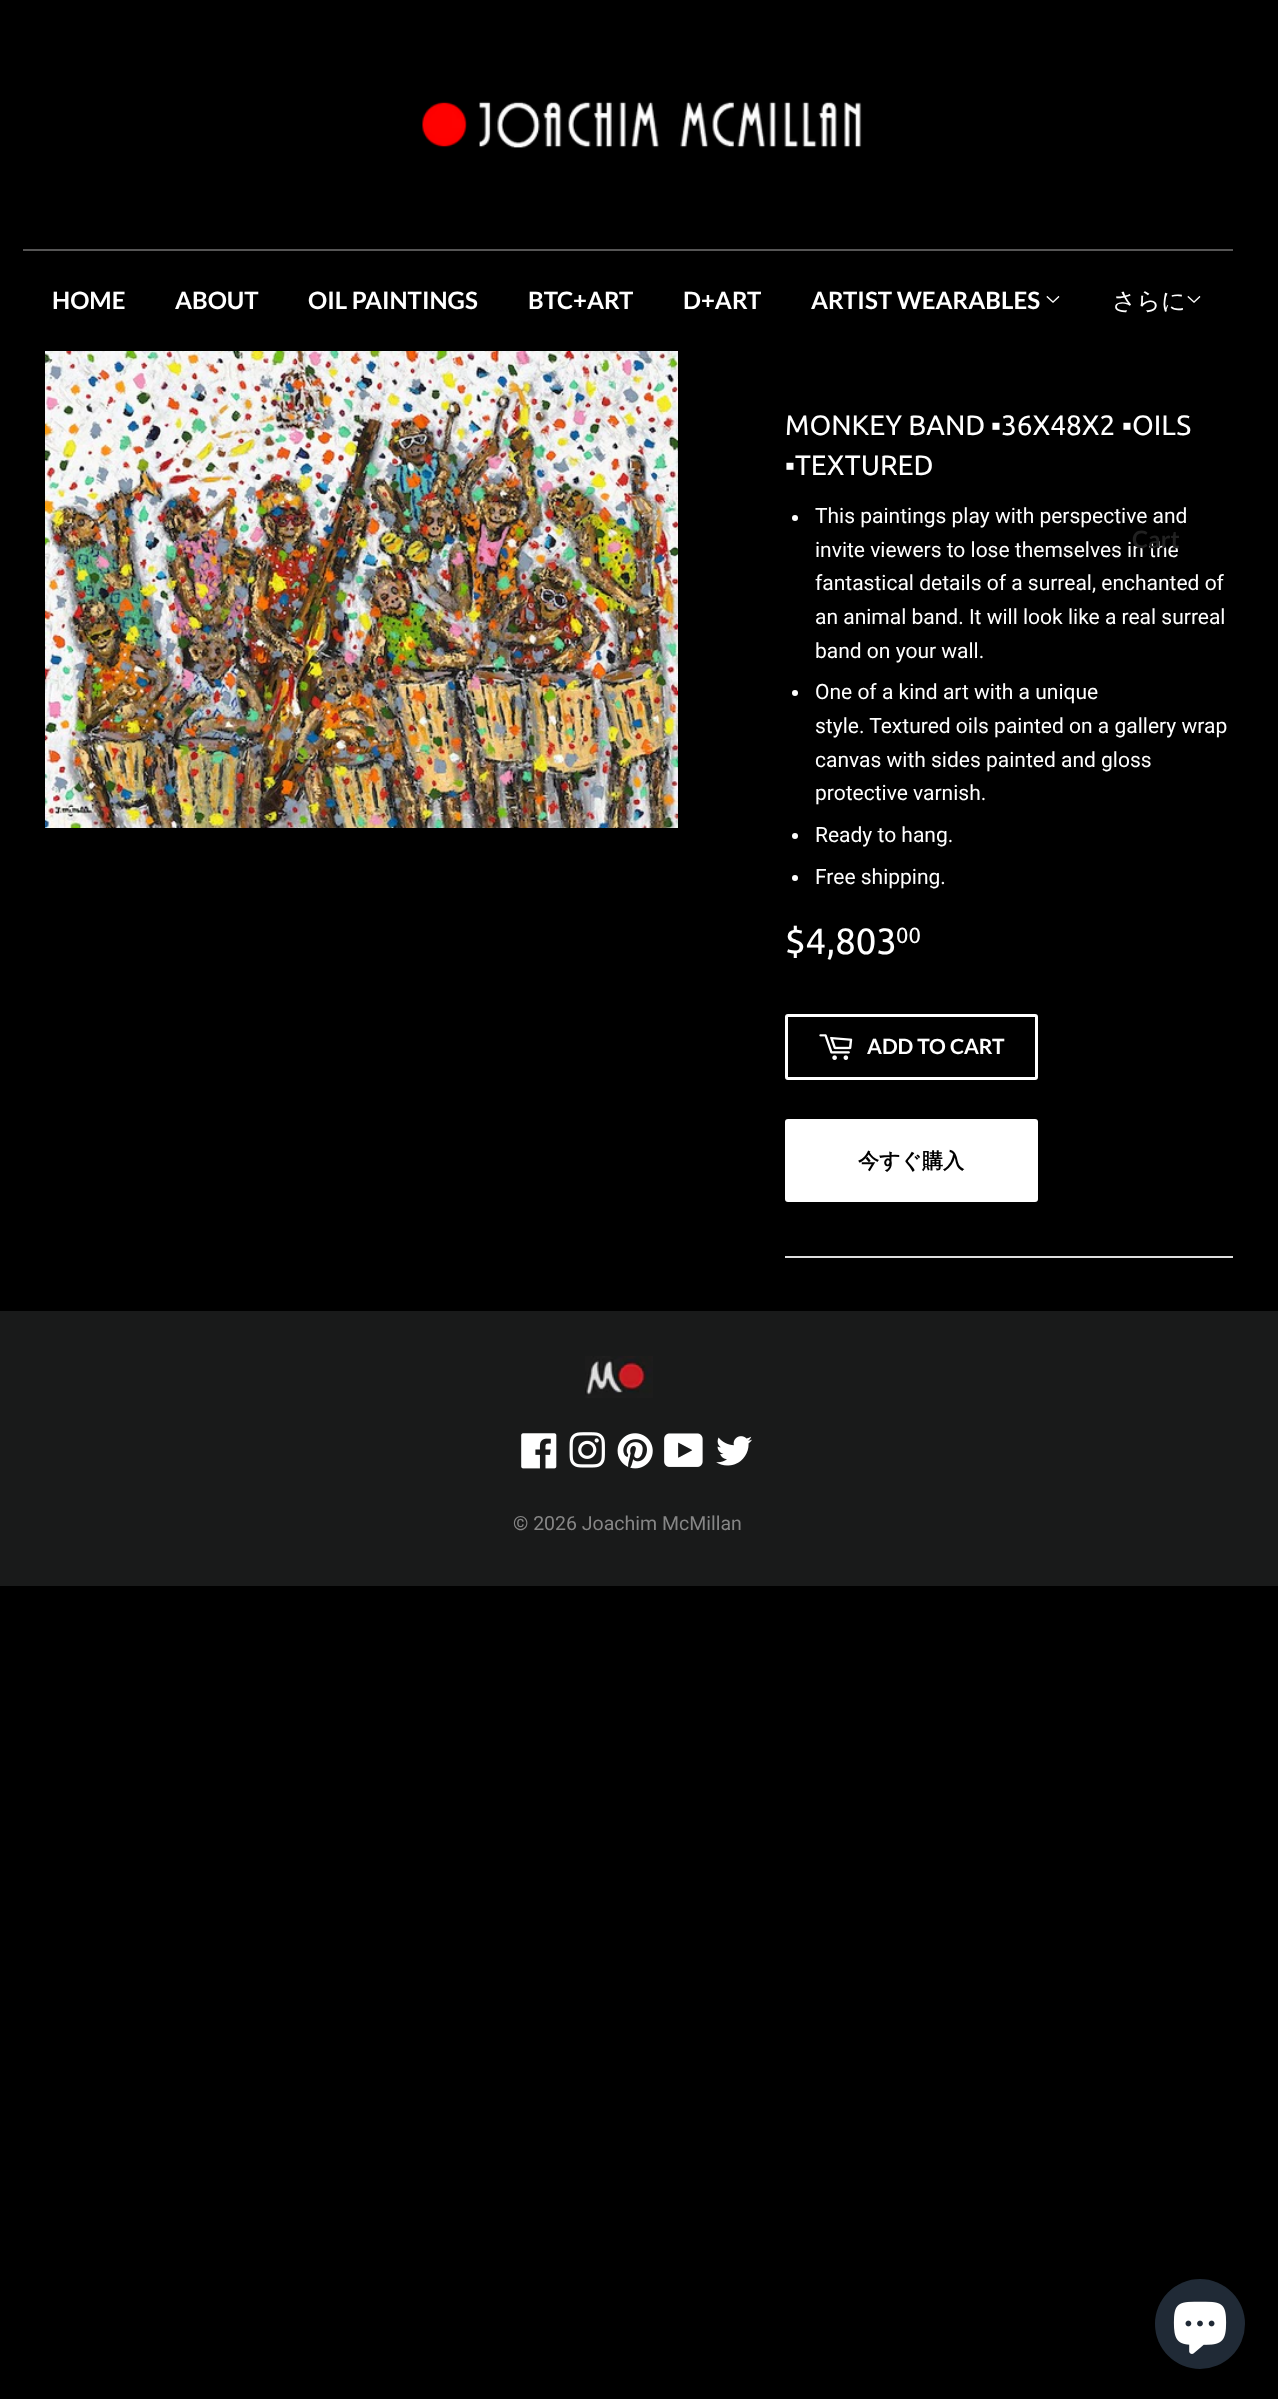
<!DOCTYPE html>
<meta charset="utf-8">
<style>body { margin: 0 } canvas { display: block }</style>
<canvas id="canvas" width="1278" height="2399"></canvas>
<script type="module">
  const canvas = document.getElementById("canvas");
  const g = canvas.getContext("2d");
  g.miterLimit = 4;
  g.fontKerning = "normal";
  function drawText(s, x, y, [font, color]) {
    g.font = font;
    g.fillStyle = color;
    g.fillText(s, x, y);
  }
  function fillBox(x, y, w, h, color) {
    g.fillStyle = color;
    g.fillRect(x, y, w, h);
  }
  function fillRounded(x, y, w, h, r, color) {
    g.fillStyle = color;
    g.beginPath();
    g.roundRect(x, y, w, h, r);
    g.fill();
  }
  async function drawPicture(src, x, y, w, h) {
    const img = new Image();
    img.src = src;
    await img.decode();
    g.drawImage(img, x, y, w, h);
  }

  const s1 = ["bold 24px Lato", "#FFFFFF"];
  const s2 = ["500 24px WenQuanYi Zen Hei", "#FFFFFF"];
  const s3 = ["21px Roboto", "#FFFFFF"];
  const s4 = ["bold 24px Lato", "#212121"];
  const s5 = ["28px Ubuntu", "#FFFFFF"];
  const s6 = ["28px Liberation Sans", "#FFFFFF"];
  const s7 = ["36.5px Ubuntu", "#FFFFFF"];
  const s8 = ["22px Ubuntu", "#FFFFFF"];
  const s9 = ["bold 21px Lato", "#FFFFFF"];
  const s10 = ["bold 21px WenQuanYi Zen Hei", "#000000"];
  const s11 = ["19.5px Roboto", "#868686"];

  fillBox(0, 0, 1278, 2399, "#000000");
  await drawPicture("pic1.png", 422, 101, 440, 47);
  fillBox(23, 249, 1210, 2, "#565555");
  drawText("HOME", 52, 309, s1);
  drawText("ABOUT", 175, 309, s1);
  drawText("OIL PAINTINGS", 308, 309, s1);
  drawText("BTC+ART", 528, 309, s1);
  drawText("D+ART", 683, 309, s1);
  drawText("ARTIST WEARABLES", 811, 309, s1);
  await drawPicture("pic2.png", 1046, 296, 14, 7);
  drawText("さらに", 1112, 309, s2);
  await drawPicture("pic2.png", 1187, 296, 14, 7);
  drawText("invite viewers to lose themselves in the", 815, 557, s3);
  drawText("Cart", 1132, 548, s4);
  await drawPicture("pic3.png", 45, 351, 633, 477);
  drawText("MONKEY BAND", 785, 435, s5);
  drawText("▪", 991, 435, s6);
  drawText("36X48X2", 1001, 435, s5);
  drawText("▪", 1122, 435, s6);
  drawText("OILS", 1132, 435, s5);
  drawText("▪︎", 785, 475, s6);
  drawText("TEXTURED", 795, 475, s5);
  g.beginPath();
  g.arc(795, 518, 3, 0, Math.PI * 2);
  g.fill();
  drawText("This paintings play with perspective and", 815, 523, s3);
  drawText("fantastical details of a surreal, enchanted of", 815, 590, s3);
  drawText("an animal band. It will look like a real surreal", 815, 624, s3);
  drawText("band on your wall.", 815, 658, s3);
  g.beginPath();
  g.arc(795, 693, 3, 0, Math.PI * 2);
  g.fill();
  drawText("One of a kind art with a unique", 815, 699, s3);
  drawText("style. Textured oils painted on a gallery wrap", 815, 733, s3);
  drawText("canvas with sides painted and gloss", 815, 767, s3);
  drawText("protective varnish.", 815, 800, s3);
  g.beginPath();
  g.arc(795, 836, 3, 0, Math.PI * 2);
  g.fill();
  drawText("Ready to hang.", 815, 842, s3);
  g.beginPath();
  g.arc(795, 878, 3, 0, Math.PI * 2);
  g.fill();
  drawText("Free shipping.", 815, 884, s3);
  drawText("$4,803", 785, 954, s7);
  drawText("00", 896, 943, s8);
  g.beginPath();
  g.roundRect(786.5, 1015.5, 250, 63, 1.5);
  g.strokeStyle = "#FFFFFF";
  g.lineWidth = 3;
  g.stroke();
  await drawPicture("pic4.png", 819, 1034, 34, 26);
  drawText("ADD TO CART", 867, 1054, s9);
  fillRounded(785, 1119, 253, 83, 3, "#FFFFFF");
  drawText("今すぐ購入", 858, 1168, s10);
  fillBox(785, 1256, 448, 2, "#DEDEDE");
  fillBox(0, 1311, 1278, 275, "#191A1A");
  await drawPicture("pic5.png", 585, 1356, 68, 42);
  await drawPicture("pic6.png", 521, 1433, 36, 36);
  await drawPicture("pic7.png", 569, 1432, 36, 36);
  await drawPicture("pic8.png", 617, 1433, 36, 36);
  await drawPicture("pic9.png", 664, 1433, 39, 34);
  await drawPicture("pic10.png", 716, 1436, 36, 30);
  drawText("© 2026 Joachim McMillan", 513, 1530, s11);
  g.fillStyle = "#202A36";
  g.beginPath();
  g.arc(1200, 2324, 45, 0, Math.PI * 2);
  g.fill();
  await drawPicture("pic11.png", 1173, 2301, 54, 53);
</script>
